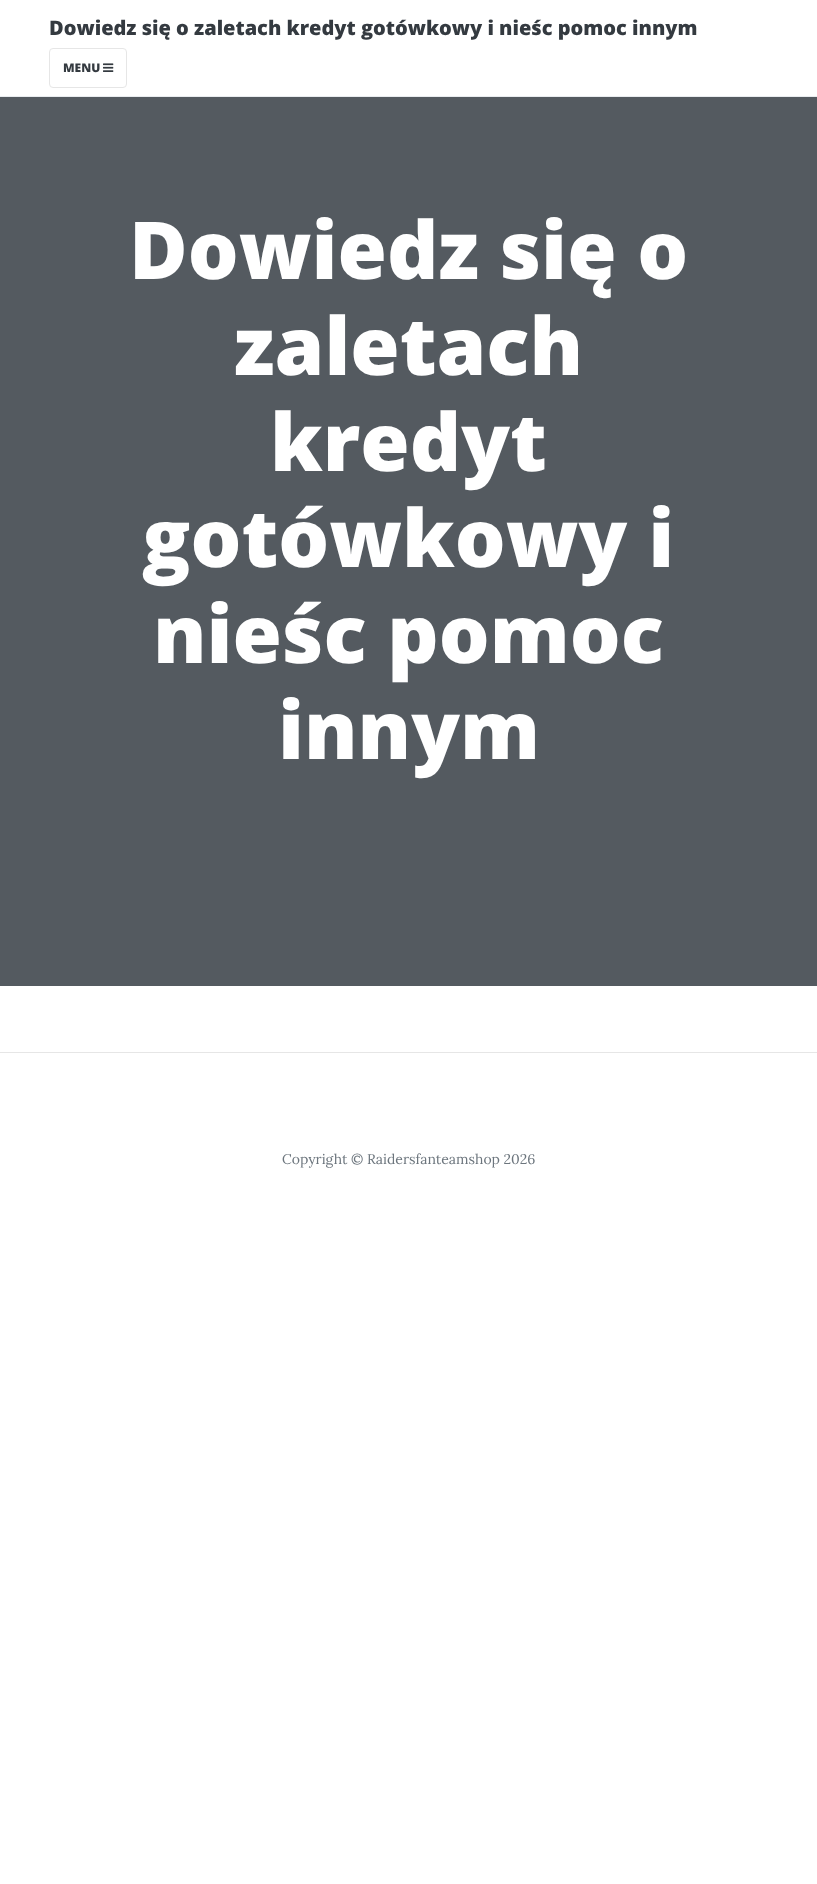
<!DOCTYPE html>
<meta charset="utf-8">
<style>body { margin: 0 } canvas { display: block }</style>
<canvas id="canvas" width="817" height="1884"></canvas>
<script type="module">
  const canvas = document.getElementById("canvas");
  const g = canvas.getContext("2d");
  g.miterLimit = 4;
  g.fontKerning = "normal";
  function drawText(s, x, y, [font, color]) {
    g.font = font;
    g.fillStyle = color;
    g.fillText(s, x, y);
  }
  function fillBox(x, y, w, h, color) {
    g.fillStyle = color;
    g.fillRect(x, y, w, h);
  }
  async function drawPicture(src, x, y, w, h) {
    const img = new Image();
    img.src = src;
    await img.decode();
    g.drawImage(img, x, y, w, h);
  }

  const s1 = ["800 20px Open Sans", "#343A40"];
  const s2 = ["800 12px Open Sans", "#343A40"];
  const s3 = ["800 80px Open Sans", "#FFFFFF"];
  const s4 = ["14px Lora", "#6C757D"];

  fillBox(0, 0, 817, 1884, "#FFFFFF");
  fillBox(0, 96, 817, 1, "#E9ECEF");
  drawText("Dowiedz się o zaletach kredyt gotówkowy i nieśc pomoc innym", 49, 35, s1);
  g.beginPath();
  g.roundRect(49.5, 48.5, 77, 39, 3.5);
  g.strokeStyle = "#E6E6E6";
  g.stroke();
  drawText("MENU", 63, 72, s2);
  await drawPicture("pic1.png", 103, 63, 11, 9);
  fillBox(0, 97, 817, 889, "#545A60");
  drawText("Dowiedz się o", 129, 279, s3);
  drawText("zaletach", 234, 375, s3);
  drawText("kredyt", 270, 471, s3);
  drawText("gotówkowy i", 142, 567, s3);
  drawText("nieśc pomoc", 153, 663, s3);
  drawText("innym", 278, 759, s3);
  fillBox(0, 1052, 817, 1, "#E6E6E6");
  drawText("Copyright © Raidersfanteamshop 2026", 282, 1164, s4);
</script>
